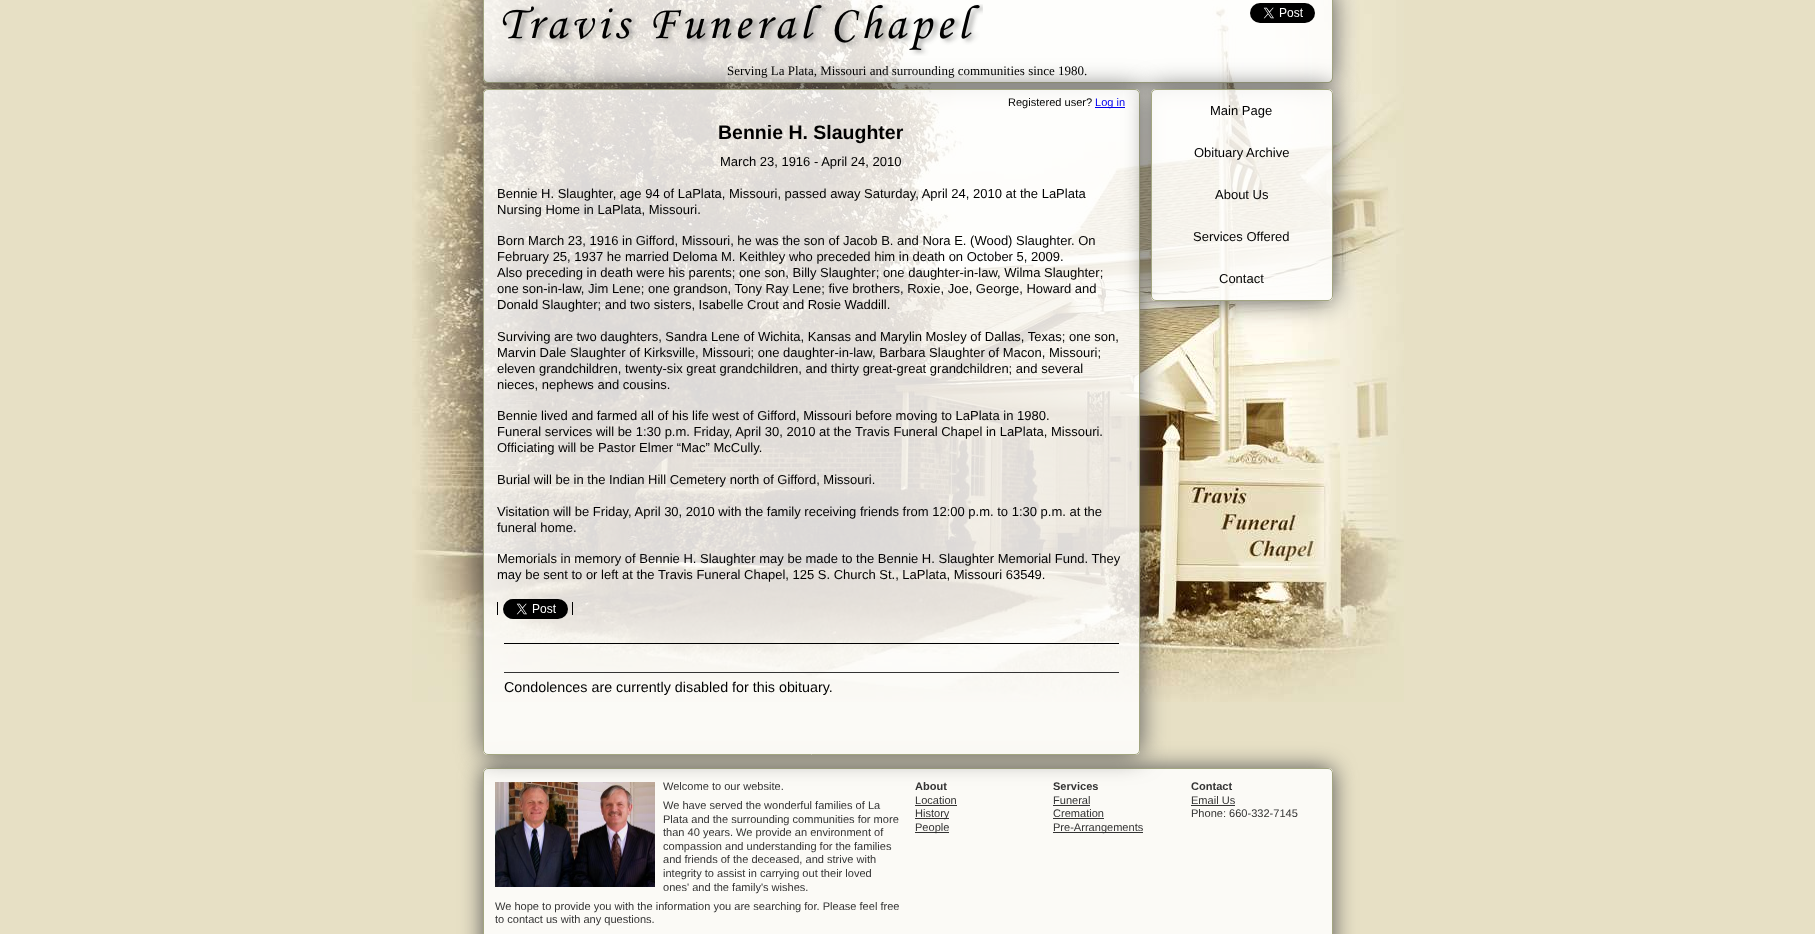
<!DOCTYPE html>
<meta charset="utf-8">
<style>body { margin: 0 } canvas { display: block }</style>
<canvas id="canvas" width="1815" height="934"></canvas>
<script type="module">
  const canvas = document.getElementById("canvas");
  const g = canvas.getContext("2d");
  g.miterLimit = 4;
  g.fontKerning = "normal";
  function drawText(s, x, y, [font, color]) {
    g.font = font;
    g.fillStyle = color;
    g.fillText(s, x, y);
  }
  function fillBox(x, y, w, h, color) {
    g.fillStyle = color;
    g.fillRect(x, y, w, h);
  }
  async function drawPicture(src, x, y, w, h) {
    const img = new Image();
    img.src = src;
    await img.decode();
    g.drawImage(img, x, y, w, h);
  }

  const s1 = ["13px Liberation Serif", "#000000"];
  const s2 = ["11.05px Liberation Sans", "#000000"];
  const s3 = ["11.05px Liberation Sans", "#0000EE"];
  const s4 = ["bold 19.5px Liberation Sans", "#000000"];
  const s5 = ["13px Liberation Sans", "#000000"];
  const s6 = ["14.3px Liberation Sans", "#000000"];
  const s7 = ["11.05px Liberation Sans", "#333333"];
  const s8 = ["bold 11.05px Liberation Sans", "#333333"];

  fillBox(0, 0, 1815, 934, "#E7E0C5");
  await drawPicture("pic1.png", 412, 0, 992, 702);
  g.save();
  g.beginPath();
  g.moveTo(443, 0);
  g.lineTo(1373, 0);
  g.lineTo(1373, 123);
  g.lineTo(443, 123);
  g.closePath();
  g.moveTo(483, -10);
  g.lineTo(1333, -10);
  g.lineTo(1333, 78);
  g.bezierCurveTo(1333, 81, 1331, 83, 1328, 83);
  g.lineTo(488, 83);
  g.bezierCurveTo(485, 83, 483, 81, 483, 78);
  g.closePath();
  g.clip("evenodd");
  g.fillStyle = "#555555";
  g.filter = "blur(13px)";
  g.beginPath();
  g.roundRect(483, -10, 850, 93, 5);
  g.fill();
  g.filter = "none";
  g.restore();
  await drawPicture("pic2.png", 483, 0, 850, 83);
  g.fillStyle = "#A2A580";
  g.beginPath();
  g.moveTo(483, -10);
  g.lineTo(1333, -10);
  g.lineTo(1333, 78);
  g.bezierCurveTo(1333, 81, 1331, 83, 1328, 83);
  g.lineTo(488, 83);
  g.bezierCurveTo(485, 83, 483, 81, 483, 78);
  g.closePath();
  g.moveTo(484, -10);
  g.lineTo(1332, -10);
  g.lineTo(1332, 78);
  g.bezierCurveTo(1332, 80, 1330, 82, 1328, 82);
  g.lineTo(488, 82);
  g.bezierCurveTo(486, 82, 484, 80, 484, 78);
  g.closePath();
  g.fill("evenodd");
  g.save();
  g.beginPath();
  g.moveTo(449, 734);
  g.lineTo(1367, 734);
  g.lineTo(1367, 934);
  g.lineTo(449, 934);
  g.closePath();
  g.moveTo(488, 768);
  g.lineTo(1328, 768);
  g.bezierCurveTo(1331, 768, 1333, 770, 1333, 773);
  g.lineTo(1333, 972);
  g.bezierCurveTo(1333, 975, 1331, 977, 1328, 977);
  g.lineTo(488, 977);
  g.bezierCurveTo(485, 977, 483, 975, 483, 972);
  g.lineTo(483, 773);
  g.bezierCurveTo(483, 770, 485, 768, 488, 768);
  g.closePath();
  g.clip("evenodd");
  g.fillStyle = "#555555";
  g.filter = "blur(11px)";
  g.beginPath();
  g.roundRect(483, 768, 850, 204, 5);
  g.fill();
  g.filter = "none";
  g.restore();
  await drawPicture("pic8.png", 483, 768, 850, 166);
  g.beginPath();
  g.roundRect(483.5, 768.5, 849, 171, 4.5);
  g.strokeStyle = "#A2A580";
  g.stroke();
  g.save();
  g.beginPath();
  g.moveTo(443, 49);
  g.lineTo(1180, 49);
  g.lineTo(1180, 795);
  g.lineTo(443, 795);
  g.closePath();
  g.moveTo(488, 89);
  g.lineTo(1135, 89);
  g.bezierCurveTo(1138, 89, 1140, 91, 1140, 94);
  g.lineTo(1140, 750);
  g.bezierCurveTo(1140, 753, 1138, 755, 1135, 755);
  g.lineTo(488, 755);
  g.bezierCurveTo(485, 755, 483, 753, 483, 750);
  g.lineTo(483, 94);
  g.bezierCurveTo(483, 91, 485, 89, 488, 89);
  g.closePath();
  g.clip("evenodd");
  g.fillStyle = "#555555";
  g.filter = "blur(13px)";
  g.beginPath();
  g.roundRect(483, 89, 657, 666, 5);
  g.fill();
  g.filter = "none";
  g.restore();
  await drawPicture("pic3.png", 502, 4, 481, 52);
  await drawPicture("pic4.png", 1250, 3, 65, 20);
  drawText("Serving La Plata, Missouri and surrounding communities since 1980.", 727, 75, s1);
  await drawPicture("pic5.png", 483, 89, 657, 666);
  g.beginPath();
  g.roundRect(483.5, 89.5, 656, 665, 4.5);
  g.stroke();
  drawText("Registered user?", 1008, 106, s2);
  fillBox(1095, 107, 30, 1, "#0000EE");
  drawText("Log in", 1095, 106, s3);
  drawText("Bennie H. Slaughter", 718, 139, s4);
  drawText("March 23, 1916 - April 24, 2010", 720, 166, s5);
  drawText("Bennie H. Slaughter, age 94 of LaPlata, Missouri, passed away Saturday, April 24, 2010 at the LaPlata", 497, 198, s5);
  drawText("Nursing Home in LaPlata, Missouri.", 497, 214, s5);
  drawText("Born March 23, 1916 in Gifford, Missouri, he was the son of Jacob B. and Nora E. (Wood) Slaughter. On", 497, 245, s5);
  drawText("February 25, 1937 he married Deloma M. Keithley who preceded him in death on October 5, 2009.", 497, 261, s5);
  drawText("Also preceding in death were his parents; one son, Billy Slaughter; one daughter-in-law, Wilma Slaughter;", 497, 277, s5);
  drawText("one son-in-law, Jim Lene; one grandson, Tony Ray Lene; five brothers, Roxie, Joe, George, Howard and", 497, 293, s5);
  drawText("Donald Slaughter; and two sisters, Isabelle Crout and Rosie Waddill.", 497, 309, s5);
  drawText("Surviving are two daughters, Sandra Lene of Wichita, Kansas and Marylin Mosley of Dallas, Texas; one son,", 497, 341, s5);
  drawText("Marvin Dale Slaughter of Kirksville, Missouri; one daughter-in-law, Barbara Slaughter of Macon, Missouri;", 497, 357, s5);
  drawText("eleven grandchildren, twenty-six great grandchildren, and thirty great-great grandchildren; and several", 497, 373, s5);
  drawText("nieces, nephews and cousins.", 497, 389, s5);
  drawText("Bennie lived and farmed all of his life west of Gifford, Missouri before moving to LaPlata in 1980.", 497, 420, s5);
  drawText("Funeral services will be 1:30 p.m. Friday, April 30, 2010 at the Travis Funeral Chapel in LaPlata, Missouri.", 497, 436, s5);
  drawText("Officiating will be Pastor Elmer “Mac” McCully.", 497, 452, s5);
  drawText("Burial will be in the Indian Hill Cemetery north of Gifford, Missouri.", 497, 484, s5);
  drawText("Visitation will be Friday, April 30, 2010 with the family receiving friends from 12:00 p.m. to 1:30 p.m. at the", 497, 516, s5);
  drawText("funeral home.", 497, 532, s5);
  drawText("Memorials in memory of Bennie H. Slaughter may be made to the Bennie H. Slaughter Memorial Fund. They", 497, 563, s5);
  drawText("may be sent to or left at the Travis Funeral Chapel, 125 S. Church St., LaPlata, Missouri 63549.", 497, 579, s5);
  fillBox(497, 602, 1, 13, "#000000");
  await drawPicture("pic6.png", 503, 599, 65, 20);
  fillBox(572, 602, 1, 13, "#000000");
  fillBox(504, 643, 615, 1, "#000000");
  fillBox(504, 672, 615, 1, "#333333");
  drawText("Condolences are currently disabled for this obituary.", 504, 692, s6);
  g.save();
  g.beginPath();
  g.moveTo(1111, 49);
  g.lineTo(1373, 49);
  g.lineTo(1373, 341);
  g.lineTo(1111, 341);
  g.closePath();
  g.moveTo(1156, 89);
  g.lineTo(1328, 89);
  g.bezierCurveTo(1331, 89, 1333, 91, 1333, 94);
  g.lineTo(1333, 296);
  g.bezierCurveTo(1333, 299, 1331, 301, 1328, 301);
  g.lineTo(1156, 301);
  g.bezierCurveTo(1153, 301, 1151, 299, 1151, 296);
  g.lineTo(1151, 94);
  g.bezierCurveTo(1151, 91, 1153, 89, 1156, 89);
  g.closePath();
  g.clip("evenodd");
  g.fillStyle = "#555555";
  g.filter = "blur(13px)";
  g.beginPath();
  g.roundRect(1151, 89, 182, 212, 5);
  g.fill();
  g.filter = "none";
  g.restore();
  await drawPicture("pic7.png", 1151, 89, 182, 212);
  g.beginPath();
  g.roundRect(1151.5, 89.5, 181, 211, 4.5);
  g.stroke();
  drawText("Main Page", 1210, 115, s5);
  drawText("Obituary Archive", 1194, 157, s5);
  drawText("About Us", 1215, 199, s5);
  drawText("Services Offered", 1193, 241, s5);
  drawText("Contact", 1219, 283, s5);
  await drawPicture("pic9.png", 495, 782, 160, 105);
  drawText("Welcome to our website.", 663, 790, s7);
  drawText("We have served the wonderful families of La", 663, 809, s7);
  drawText("Plata and the surrounding communities for more", 663, 823, s7);
  drawText("than 40 years. We provide an environment of", 663, 836, s7);
  drawText("compassion and understanding for the families", 663, 850, s7);
  drawText("and friends of the deceased, and strive with", 663, 863, s7);
  drawText("integrity to assist in carrying out their loved", 663, 877, s7);
  drawText("ones' and the family's wishes.", 663, 891, s7);
  drawText("We hope to provide you with the information you are searching for. Please feel free", 495, 910, s7);
  drawText("to contact us with any questions.", 495, 923, s7);
  drawText("About", 915, 790, s8);
  drawText("Location", 915, 804, s7);
  fillBox(915, 805, 42, 1, "#333333");
  fillBox(915, 818, 34, 1, "#333333");
  drawText("History", 915, 817, s7);
  fillBox(915, 832, 34, 1, "#333333");
  drawText("People", 915, 831, s7);
  drawText("Services", 1053, 790, s8);
  drawText("Funeral", 1053, 804, s7);
  fillBox(1053, 805, 37, 1, "#333333");
  drawText("Cremation", 1053, 817, s7);
  fillBox(1053, 818, 51, 1, "#333333");
  fillBox(1053, 832, 90, 1, "#333333");
  drawText("Pre-Arrangements", 1053, 831, s7);
  drawText("Contact", 1191, 790, s8);
  drawText("Email Us", 1191, 804, s7);
  fillBox(1191, 805, 44, 1, "#333333");
  drawText("Phone: 660-332-7145", 1191, 817, s7);
</script>
